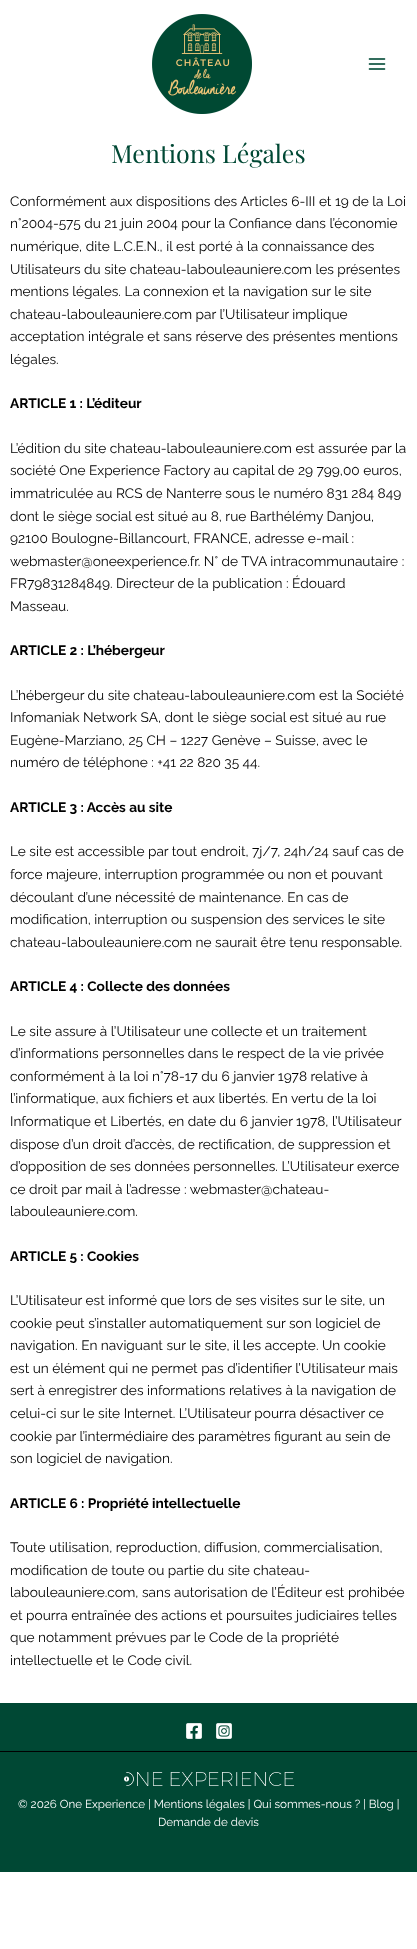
<!DOCTYPE html>
<meta charset="utf-8">
<style>body { margin: 0 } canvas { display: block }</style>
<canvas id="canvas" width="417" height="1949"></canvas>
<script type="module">
  const canvas = document.getElementById("canvas");
  const g = canvas.getContext("2d");
  g.miterLimit = 4;
  g.fontKerning = "normal";
  function drawText(s, x, y, [font, color]) {
    g.font = font;
    g.fillStyle = color;
    g.fillText(s, x, y);
  }
  function fillBox(x, y, w, h, color) {
    g.fillStyle = color;
    g.fillRect(x, y, w, h);
  }
  async function drawPicture(src, x, y, w, h) {
    const img = new Image();
    img.src = src;
    await img.decode();
    g.drawImage(img, x, y, w, h);
  }

  const s1 = ["25px Playfair Display", "#004834"];
  const s2 = ["13.7px Raleway", "#000000"];
  const s3 = ["bold 13.7px Raleway", "#000000"];
  const s4 = ["11.6px Raleway", "#FFFFFF"];

  fillBox(0, 0, 417, 1949, "#FFFFFF");
  await drawPicture("pic1.png", 152, 14, 100, 100);
  await drawPicture("pic2.png", 368, 58, 18, 12);
  drawText("Mentions Légales", 111, 163, s1);
  drawText("Conformément aux dispositions des Articles 6-III et 19 de la Loi", 10, 206, s2);
  drawText("n°2004-575 du 21 juin 2004 pour la Confiance dans l’économie", 10, 228, s2);
  drawText("numérique, dite L.C.E.N., il est porté à la connaissance des", 10, 251, s2);
  drawText("Utilisateurs du site chateau-labouleauniere.com les présentes", 10, 274, s2);
  drawText("mentions légales. La connexion et la navigation sur le site", 10, 296, s2);
  drawText("chateau-labouleauniere.com par l’Utilisateur implique", 10, 319, s2);
  drawText("acceptation intégrale et sans réserve des présentes mentions", 10, 341, s2);
  drawText("légales.", 10, 364, s2);
  drawText("ARTICLE 1 : L’éditeur", 10, 408, s3);
  drawText("L’édition du site chateau-labouleauniere.com est assurée par la", 10, 453, s2);
  drawText("société One Experience Factory au capital de 29 799,00 euros,", 10, 475, s2);
  drawText("immatriculée au RCS de Nanterre sous le numéro 831 284 849", 10, 498, s2);
  drawText("dont le siège social est situé au 8, rue Barthélémy Danjou,", 10, 521, s2);
  drawText("92100 Boulogne-Billancourt, FRANCE, adresse e-mail :", 10, 543, s2);
  drawText("webmaster@oneexperience.fr. N° de TVA intracommunautaire :", 10, 566, s2);
  drawText("FR79831284849. Directeur de la publication : Édouard", 10, 588, s2);
  drawText("Masseau.", 10, 611, s2);
  drawText("ARTICLE 2 : L’hébergeur", 10, 655, s3);
  drawText("L’hébergeur du site chateau-labouleauniere.com est la Société", 10, 700, s2);
  drawText("Infomaniak Network SA, dont le siège social est situé au rue", 10, 722, s2);
  drawText("Eugène-Marziano, 25 CH – 1227 Genève – Suisse, avec le", 10, 745, s2);
  drawText("numéro de téléphone : +41 22 820 35 44.", 10, 767, s2);
  drawText("ARTICLE 3 : Accès au site", 10, 812, s3);
  drawText("Le site est accessible par tout endroit, 7j/7, 24h/24 sauf cas de", 10, 856, s2);
  drawText("force majeure, interruption programmée ou non et pouvant", 10, 879, s2);
  drawText("découlant d’une nécessité de maintenance. En cas de", 10, 902, s2);
  drawText("modification, interruption ou suspension des services le site", 10, 924, s2);
  drawText("chateau-labouleauniere.com ne saurait être tenu responsable.", 10, 947, s2);
  drawText("ARTICLE 4 : Collecte des données", 10, 991, s3);
  drawText("Le site assure à l’Utilisateur une collecte et un traitement", 10, 1036, s2);
  drawText("d’informations personnelles dans le respect de la vie privée", 10, 1058, s2);
  drawText("conformément à la loi n°78-17 du 6 janvier 1978 relative à", 10, 1081, s2);
  drawText("l’informatique, aux fichiers et aux libertés. En vertu de la loi", 10, 1103, s2);
  drawText("Informatique et Libertés, en date du 6 janvier 1978, l’Utilisateur", 10, 1126, s2);
  drawText("dispose d’un droit d’accès, de rectification, de suppression et", 10, 1149, s2);
  drawText("d’opposition de ses données personnelles. L’Utilisateur exerce", 10, 1171, s2);
  drawText("ce droit par mail à l’adresse : webmaster@chateau-", 10, 1194, s2);
  drawText("labouleauniere.com.", 10, 1216, s2);
  drawText("ARTICLE 5 : Cookies", 10, 1261, s3);
  drawText("L’Utilisateur est informé que lors de ses visites sur le site, un", 10, 1305, s2);
  drawText("cookie peut s’installer automatiquement sur son logiciel de", 10, 1328, s2);
  drawText("navigation. En naviguant sur le site, il les accepte. Un cookie", 10, 1350, s2);
  drawText("est un élément qui ne permet pas d’identifier l’Utilisateur mais", 10, 1373, s2);
  drawText("sert à enregistrer des informations relatives à la navigation de", 10, 1395, s2);
  drawText("celui-ci sur le site Internet. L’Utilisateur pourra désactiver ce", 10, 1418, s2);
  drawText("cookie par l’intermédiaire des paramètres figurant au sein de", 10, 1441, s2);
  drawText("son logiciel de navigation.", 10, 1463, s2);
  drawText("ARTICLE 6 : Propriété intellectuelle", 10, 1508, s3);
  drawText("Toute utilisation, reproduction, diffusion, commercialisation,", 10, 1552, s2);
  drawText("modification de toute ou partie du site chateau-", 10, 1575, s2);
  drawText("labouleauniere.com, sans autorisation de l’Éditeur est prohibée", 10, 1597, s2);
  drawText("et pourra entraînée des actions et poursuites judiciaires telles", 10, 1620, s2);
  drawText("que notamment prévues par le Code de la propriété", 10, 1642, s2);
  drawText("intellectuelle et le Code civil.", 10, 1665, s2);
  fillBox(0, 1703, 417, 48, "#004834");
  await drawPicture("pic3.png", 186, 1723, 16, 16);
  await drawPicture("pic4.png", 216, 1723, 16, 16);
  fillBox(0, 1752, 417, 120, "#004834");
  fillBox(0, 1751, 417, 1, "#000000");
  await drawPicture("pic5.png", 124, 1772, 170, 14);
  drawText("© 2026 One Experience | Mentions légales | Qui sommes-nous ? | Blog |", 18, 1808, s4);
  drawText("Demande de devis", 158, 1826, s4);
</script>
